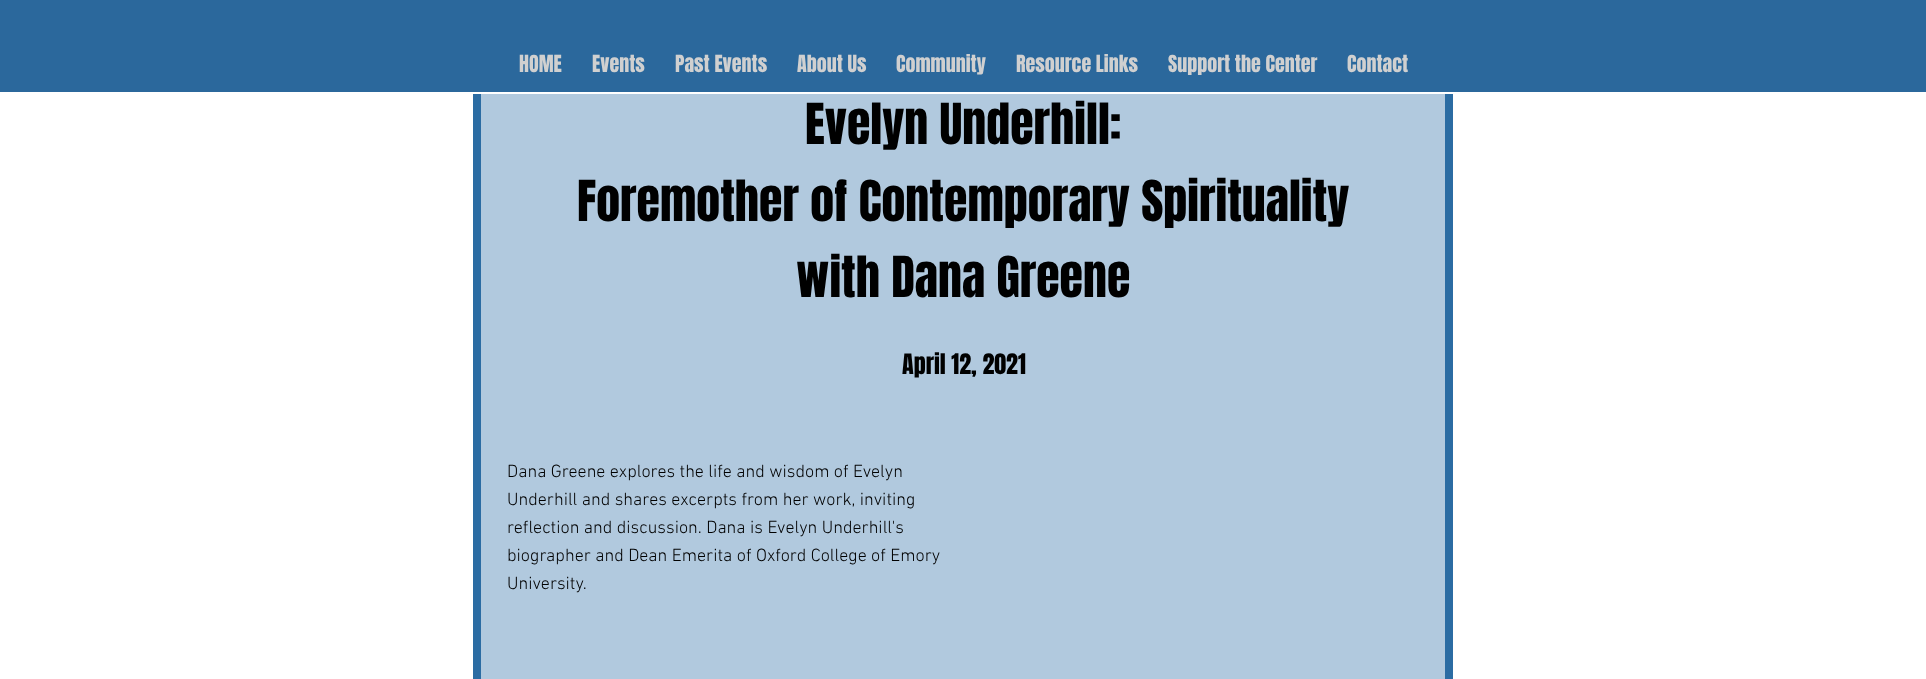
<!DOCTYPE html>
<meta charset="utf-8">
<style>body { margin: 0 } canvas { display: block }</style>
<canvas id="canvas" width="1926" height="679"></canvas>
<script type="module">
  const canvas = document.getElementById("canvas");
  const g = canvas.getContext("2d");
  g.miterLimit = 4;
  g.fontKerning = "normal";
  function drawText(s, x, y, [font, color]) {
    g.font = font;
    g.fillStyle = color;
    g.fillText(s, x, y);
  }
  function fillBox(x, y, w, h, color) {
    g.fillStyle = color;
    g.fillRect(x, y, w, h);
  }

  const s1 = ["20px Anton", "#D0D0D0"];
  const s2 = ["48px Anton", "#000000"];
  const s3 = ["24px Anton", "#000000"];
  const s4 = ["300 18px 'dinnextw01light'", "#000000"];

  fillBox(0, 0, 1926, 679, "#FFFFFF");
  fillBox(481, 94, 964, 585, "#B1C9DE");
  g.strokeStyle = "#2B6CA3";
  g.lineWidth = 8;
  g.strokeRect(477, 73, 972, 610);
  fillBox(0, 0, 1926, 92, "#2B689C");
  fillBox(473, 92, 980, 2, "#FFFFFF");
  drawText("HOME", 519, 72, s1);
  drawText("Events", 592, 72, s1);
  drawText("Past Events", 675, 72, s1);
  drawText("About Us", 797, 72, s1);
  drawText("Community", 896, 72, s1);
  drawText("Resource Links", 1016, 72, s1);
  drawText("Support the Center", 1168, 72, s1);
  drawText("Contact", 1347, 72, s1);
  drawText("Evelyn Underhill:", 805, 144, s2);
  drawText("Foremother of Contemporary Spirituality", 577, 221, s2);
  drawText("with Dana Greene", 796, 297, s2);
  drawText("April 12, 2021", 902, 374, s3);
  drawText("Dana Greene explores the life and wisdom of Evelyn", 507, 477, s4);
  drawText("Underhill and shares excerpts from her work, inviting", 507, 505, s4);
  drawText("reflection and discussion. Dana is Evelyn Underhill's", 507, 533, s4);
  drawText("biographer and Dean Emerita of Oxford College of Emory", 507, 561, s4);
  drawText("University.", 507, 589, s4);
</script>
